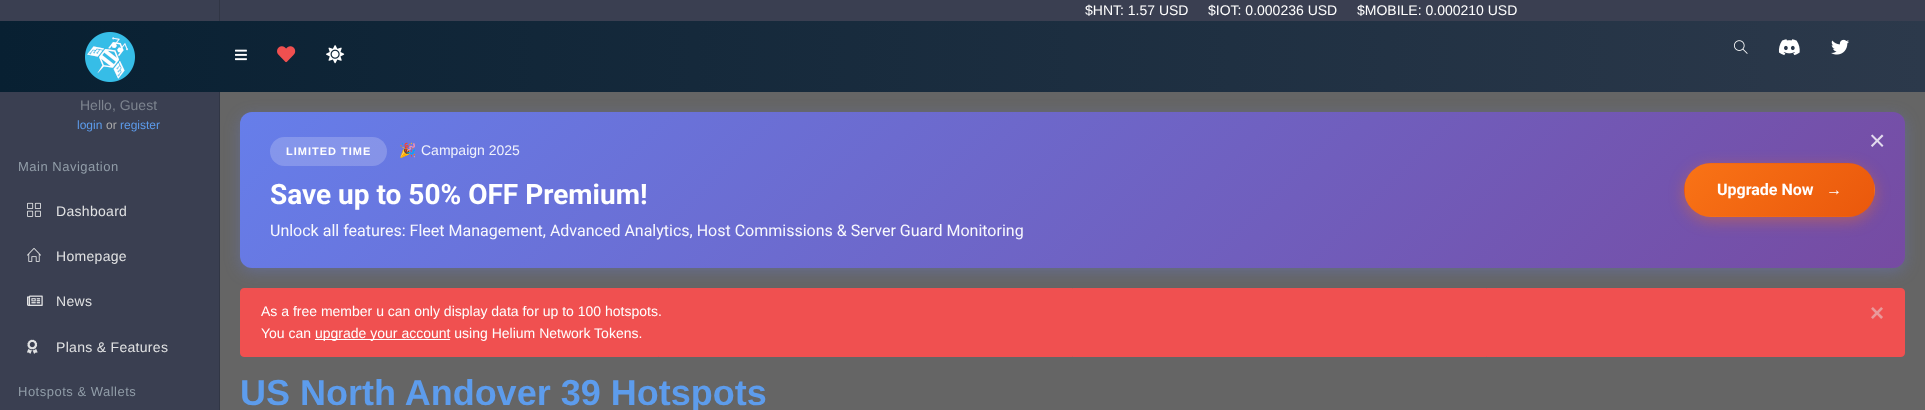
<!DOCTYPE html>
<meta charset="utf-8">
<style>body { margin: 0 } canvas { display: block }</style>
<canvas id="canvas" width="1925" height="410"></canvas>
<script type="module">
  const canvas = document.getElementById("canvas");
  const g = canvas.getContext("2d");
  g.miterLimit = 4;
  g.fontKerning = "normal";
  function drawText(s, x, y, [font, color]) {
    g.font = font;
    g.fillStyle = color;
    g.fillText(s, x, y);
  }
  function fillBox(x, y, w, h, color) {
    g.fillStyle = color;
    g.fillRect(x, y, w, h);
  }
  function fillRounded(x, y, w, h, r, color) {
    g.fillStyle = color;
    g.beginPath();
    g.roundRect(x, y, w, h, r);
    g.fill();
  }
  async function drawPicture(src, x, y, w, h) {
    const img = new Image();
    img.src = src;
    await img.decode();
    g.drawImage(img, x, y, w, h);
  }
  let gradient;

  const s1 = ["14px Liberation Sans", "#FFFFFF"];
  const s2 = ["14px Liberation Sans", "#7D848F"];
  const s3 = ["12px Liberation Sans", "#5D9CEC"];
  const s4 = ["12px Liberation Sans", "#AAAAAA"];
  const s5 = ["13px Liberation Sans", "#919DA8"];
  const s6 = ["14px Liberation Sans", "#E1E2E3"];
  const s7 = ["28px Liberation Sans", "#E3DCEE"];
  const s8 = ["bold 11px Liberation Sans", "#FFFFFF"];
  const s9 = ["14px Noto Color Emoji", "#F0F2FC"];
  const s10 = ["14px Liberation Sans", "#F0F2FC"];
  const s11 = ["bold 28px Roboto", "#FFFFFF"];
  const s12 = ["16px Roboto", "#F8F8FD"];
  const s13 = ["bold 16px Roboto", "#FFFFFF"];
  const s14 = ["bold 16px Liberation Sans", "#FFFFFF"];
  const s15 = ["bold 24px Liberation Sans", "#E9999A"];
  const s16 = ["bold 36px Liberation Sans", "#5D9CEC"];

  fillBox(0, 0, 1925, 410, "#3A3F51");
  drawText("$HNT: 1.57 USD", 1085, 15, s1);
  drawText("$IOT: 0.000236 USD", 1208, 15, s1);
  drawText("$MOBILE: 0.000210 USD", 1357, 15, s1);
  fillBox(220, 92, 1705, 318, "#656565");
  g.fillStyle = "rgba(102, 126, 234, 0.3)";
  g.filter = "blur(7.5px)";
  g.beginPath();
  g.roundRect(240, 116, 1665, 156, 12);
  g.fill();
  g.filter = "none";
  fillBox(219, 0, 1, 410, "#313645");
  gradient = g.createLinearGradient(0, 57, 1925, 56);
  gradient.addColorStop(0, "#082032");
  gradient.addColorStop(1, "#2C394B");
  g.fillStyle = gradient;
  g.fillRect(0, 21, 1925, 71);
  await drawPicture("pic1.png", 85, 32, 50, 50);
  await drawPicture("pic2.png", 235, 49, 12, 12);
  await drawPicture("pic3.png", 277, 46, 19, 17);
  await drawPicture("pic4.png", 326, 45, 19, 19);
  await drawPicture("pic5.png", 1733, 40, 15, 14);
  await drawPicture("pic6.png", 1778, 39, 22, 17);
  await drawPicture("pic7.png", 1831, 39, 18, 16);
  drawText("Hello, Guest", 80, 110, s2);
  drawText("login", 77, 129, s3);
  drawText("or", 106, 129, s4);
  drawText("register", 120, 129, s3);
  g.letterSpacing = "0.5px";
  drawText("Main Navigation", 18, 171, s5);
  await drawPicture("pic8.png", 27, 202, 14, 15);
  g.letterSpacing = "0.3px";
  drawText("Dashboard", 56, 216, s6);
  await drawPicture("pic9.png", 27, 248, 14, 14);
  drawText("Homepage", 56, 261, s6);
  await drawPicture("pic10.png", 27, 295, 16, 11);
  drawText("News", 56, 306, s6);
  await drawPicture("pic11.png", 27, 339, 11, 15);
  drawText("Plans & Features", 56, 352, s6);
  g.letterSpacing = "0.5px";
  drawText("Hotspots & Wallets", 18, 396, s5);
  gradient = g.createLinearGradient(617, -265, 1528, 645);
  gradient.addColorStop(0, "#667EEA");
  gradient.addColorStop(1, "#764BA2");
  g.fillStyle = gradient;
  g.beginPath();
  g.roundRect(240, 112, 1665, 156, 12);
  g.fill();
  g.letterSpacing = "0px";
  drawText("×", 1869, 150, s7);
  fillRounded(270, 137, 117, 29, 14.5, "rgba(255, 255, 255, 0.2)");
  g.letterSpacing = "1px";
  drawText("LIMITED TIME", 286, 155, s8);
  g.letterSpacing = "0px";
  drawText("🎉", 399, 155, s9);
  drawText("Campaign 2025", 421, 155, s10);
  drawText("Save up to 50% OFF Premium!", 270, 204, s11);
  drawText("Unlock all features: Fleet Management, Advanced Analytics, Host Commissions & Server Guard Monitoring", 270, 236, s12);
  g.fillStyle = "rgba(249, 115, 22, 0.4)";
  g.filter = "blur(7.5px)";
  g.beginPath();
  g.roundRect(1684, 167, 191, 54, 27);
  g.fill();
  g.filter = "none";
  g.save();
  g.beginPath();
  g.roundRect(1684, 163, 191, 54, 27);
  g.clip();
  gradient = g.createLinearGradient(1719, 78, 1840, 198);
  gradient.addColorStop(0, "#F97316");
  gradient.addColorStop(1, "#EA580C");
  g.fillStyle = gradient;
  g.fillRect(1704, 163, 151, 1);
  gradient = g.createLinearGradient(1530, 130, 1651, 250);
  gradient.addColorStop(0, "#F97316");
  gradient.addColorStop(1, "#EA580C");
  g.fillStyle = gradient;
  g.fillRect(1684, 183, 1, 14);
  gradient = g.createLinearGradient(1719, 130, 1840, 250);
  gradient.addColorStop(0, "#F97316");
  gradient.addColorStop(1, "#EA580C");
  g.fillStyle = gradient;
  g.fillRect(1685, 164, 189, 52);
  gradient = g.createLinearGradient(1908, 130, 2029, 250);
  gradient.addColorStop(0, "#F97316");
  gradient.addColorStop(1, "#EA580C");
  g.fillStyle = gradient;
  g.fillRect(1874, 183, 1, 14);
  gradient = g.createLinearGradient(1719, 182, 1840, 302);
  gradient.addColorStop(0, "#F97316");
  gradient.addColorStop(1, "#EA580C");
  g.fillStyle = gradient;
  g.fillRect(1704, 216, 151, 1);
  g.restore();
  drawText("Upgrade Now", 1717, 195, s13);
  drawText("→", 1826, 195, s14);
  g.fillStyle = "#F05050";
  g.beginPath();
  g.roundRect(240.5, 288.5, 1664, 68, 3.5);
  g.fill();
  g.strokeStyle = "#F05050";
  g.stroke();
  drawText("As a free member u can only display data for up to 100 hotspots.", 261, 316, s1);
  drawText("×", 1870, 321, s15);
  drawText("You can", 261, 338, s1);
  fillBox(315, 339, 135, 1, "#FFFFFF");
  drawText("upgrade your account using Helium Network Tokens.", 315, 338, s1);
  drawText("US North Andover 39 Hotspots", 240, 405, s16);
</script>
